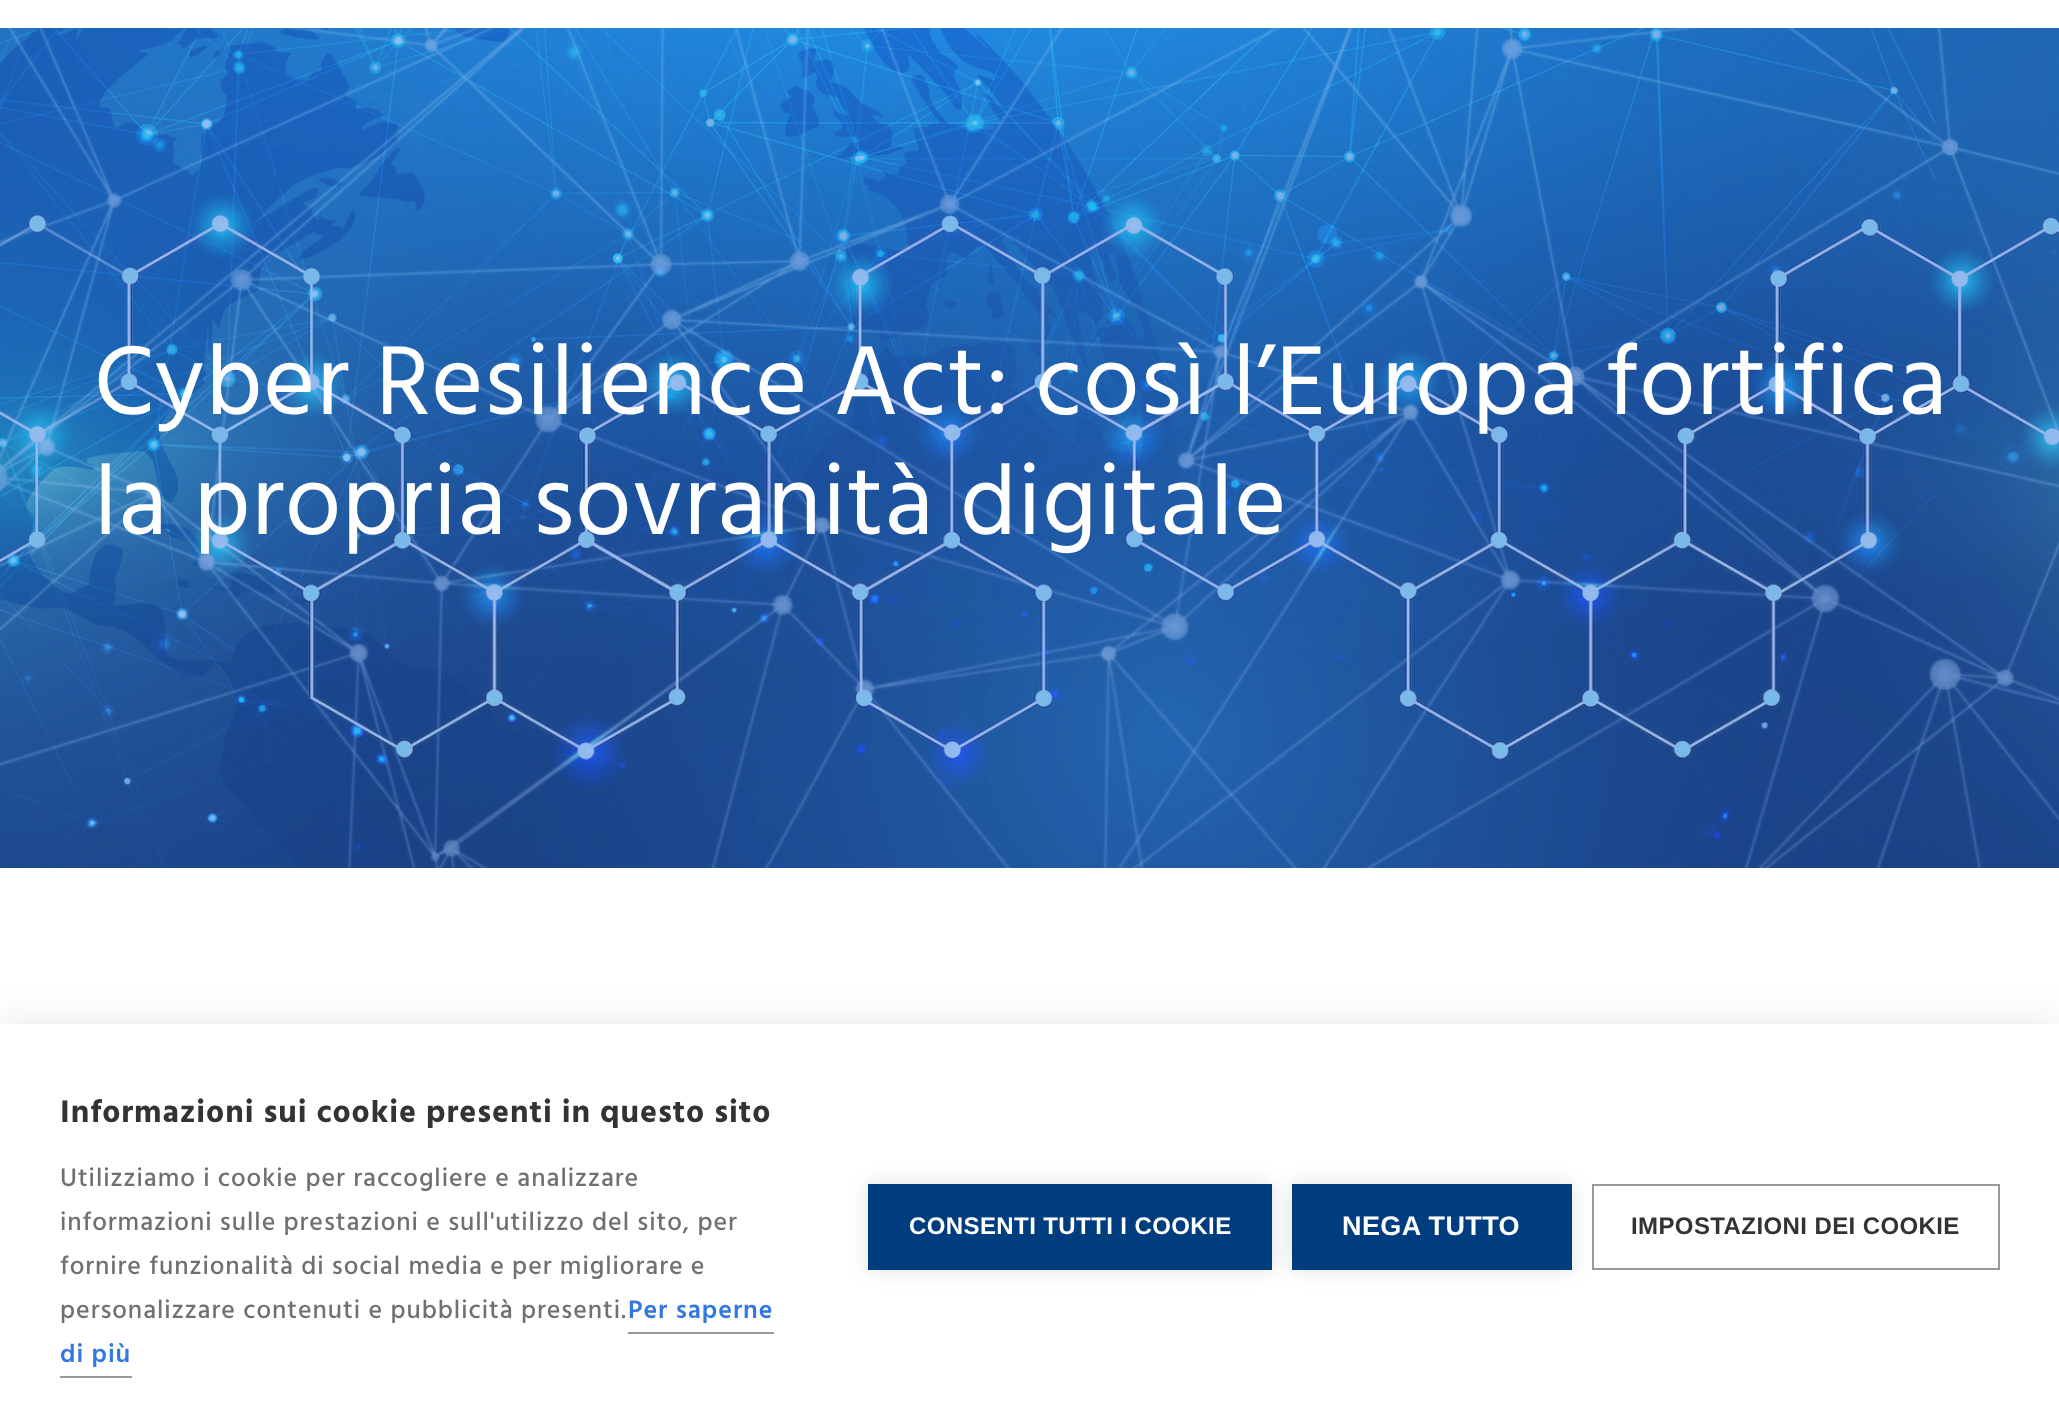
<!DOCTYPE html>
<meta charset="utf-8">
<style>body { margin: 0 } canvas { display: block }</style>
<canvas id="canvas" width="2059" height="1428"></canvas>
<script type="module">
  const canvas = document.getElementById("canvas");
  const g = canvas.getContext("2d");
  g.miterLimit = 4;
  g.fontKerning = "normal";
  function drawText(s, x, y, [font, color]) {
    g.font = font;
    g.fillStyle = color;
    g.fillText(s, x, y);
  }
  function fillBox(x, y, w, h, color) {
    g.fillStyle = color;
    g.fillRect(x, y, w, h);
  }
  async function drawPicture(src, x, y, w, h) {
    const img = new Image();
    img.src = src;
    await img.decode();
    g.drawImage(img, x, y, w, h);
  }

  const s1 = ["100px Hind", "#FFFFFF"];
  const s2 = ["bold 32px Hind", "#333333"];
  const s3 = ["500 26px Hind", "#707070"];
  const s4 = ["600 26px Hind", "#3377E0"];
  const s5 = ["bold 24px Liberation Sans", "#FFFFFF"];
  const s6 = ["bold 27px Liberation Sans", "#FFFFFF"];
  const s7 = ["bold 24px Liberation Sans", "#333333"];

  fillBox(0, 0, 2059, 1428, "#FFFFFF");
  await drawPicture("pic1.png", 0, 28, 2059, 840);
  g.letterSpacing = "0.95px";
  drawText("Cyber Resilience Act: così l’Europa fortifica", 94, 414, s1);
  drawText("la propria sovranità digitale", 94, 534, s1);
  g.fillStyle = "rgba(0, 0, 0, 0.1)";
  g.filter = "blur(20px)";
  g.beginPath();
  g.rect(0, 1024, 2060, 404);
  g.fill();
  g.filter = "none";
  fillBox(0, 1024, 2059, 404, "#FFFFFF");
  drawText("Informazioni sui cookie presenti in questo sito", 60, 1122, s2);
  drawText("Utilizziamo i cookie per raccogliere e analizzare", 60, 1186, s3);
  drawText("informazioni sulle prestazioni e sull'utilizzo del sito, per", 60, 1230, s3);
  drawText("fornire funzionalità di social media e per migliorare e", 60, 1274, s3);
  drawText("personalizzare contenuti e pubblicità presenti.", 60, 1318, s3);
  drawText("Per saperne", 628, 1318, s4);
  fillBox(628, 1332, 146, 2, "#999999");
  drawText("di più", 60, 1362, s4);
  fillBox(60, 1376, 72, 2, "#999999");
  g.fillStyle = "rgba(0, 0, 0, 0.12)";
  g.filter = "blur(10px)";
  g.beginPath();
  g.rect(868, 1184, 404, 86);
  g.fill();
  g.filter = "none";
  fillBox(868, 1184, 404, 86, "#003D7F");
  g.letterSpacing = "0.4px";
  drawText("CONSENTI TUTTI I COOKIE", 909, 1234, s5);
  g.fillStyle = "rgba(0, 0, 0, 0.12)";
  g.filter = "blur(10px)";
  g.beginPath();
  g.rect(1292, 1184, 280, 86);
  g.fill();
  g.filter = "none";
  fillBox(1292, 1184, 280, 86, "#003D7F");
  drawText("NEGA TUTTO", 1342, 1235, s6);
  g.strokeStyle = "#999999";
  g.lineWidth = 2;
  g.strokeRect(1593, 1185, 406, 84);
  drawText("IMPOSTAZIONI DEI COOKIE", 1631, 1234, s7);
</script>
